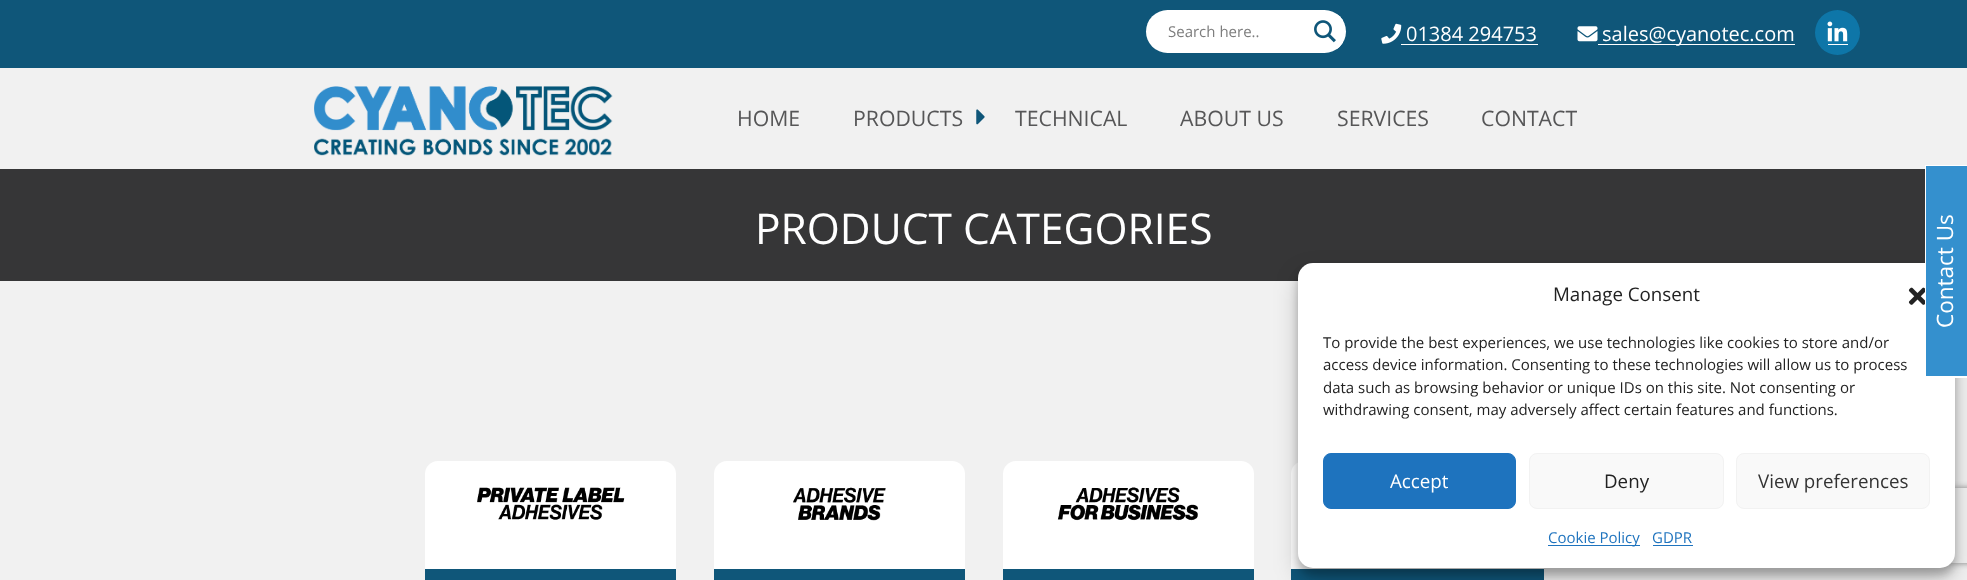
<!DOCTYPE html>
<meta charset="utf-8">
<style>body { margin: 0 } canvas { display: block }</style>
<canvas id="canvas" width="1967" height="580"></canvas>
<script type="module">
  const canvas = document.getElementById("canvas");
  const g = canvas.getContext("2d");
  g.miterLimit = 4;
  g.fontKerning = "normal";
  function drawText(s, x, y, [font, color]) {
    g.font = font;
    g.fillStyle = color;
    g.fillText(s, x, y);
  }
  function fillBox(x, y, w, h, color) {
    g.fillStyle = color;
    g.fillRect(x, y, w, h);
  }
  function fillRounded(x, y, w, h, r, color) {
    g.fillStyle = color;
    g.beginPath();
    g.roundRect(x, y, w, h, r);
    g.fill();
  }
  async function drawPicture(src, x, y, w, h) {
    const img = new Image();
    img.src = src;
    await img.decode();
    g.drawImage(img, x, y, w, h);
  }

  const s1 = ["15px Open Sans", "#7D7D7D"];
  const s2 = ["20px Open Sans", "#FFFFFF"];
  const s3 = ["21.25px Open Sans", "#565657"];
  const s4 = ["42.5px Open Sans", "#FFFFFF"];
  const s5 = ["18.75px Open Sans", "#222222"];
  const s6 = ["15px Open Sans", "#222222"];
  const s7 = ["18.75px Open Sans", "#FFFFFF"];
  const s8 = ["18.75px Open Sans", "#333333"];
  const s9 = ["15px Open Sans", "#1E73BE"];

  fillBox(0, 0, 1967, 580, "#F1F1F1");
  fillBox(0, 0, 1967, 68, "#0F5679");
  fillRounded(1146, 10, 200, 43, 21.5, "#FFFFFF");
  drawText("Search here..", 1168, 37, s1);
  g.save();
  g.beginPath();
  g.roundRect(1146, 10, 200, 43, 21.5);
  g.clip();
  fillBox(1308, 14, 35, 35, "#FFFFFF");
  g.restore();
  await drawPicture("pic1.png", 1314, 20, 22, 23);
  await drawPicture("pic2.png", 1381, 23, 21, 21);
  drawText("01384 294753", 1406, 41, s2);
  fillBox(1401, 44, 137, 1, "#FFFFFF");
  await drawPicture("pic3.png", 1577, 26, 21, 16);
  fillBox(1598, 44, 197, 1, "#FFFFFF");
  drawText("sales@cyanotec.com", 1602, 41, s2);
  g.fillStyle = "#0E76A8";
  g.beginPath();
  g.arc(1837.5, 32.5, 22.5, 0, Math.PI * 2);
  g.fill();
  await drawPicture("pic4.png", 1827, 21, 21, 21);
  fillBox(1828, 44, 20, 1, "#FFFFFF");
  await drawPicture("pic5.png", 314, 86, 299, 70);
  drawText("HOME", 737, 126, s3);
  drawText("PRODUCTS", 853, 126, s3);
  await drawPicture("pic6.png", 976, 109, 9, 16);
  drawText("TECHNICAL", 1015, 126, s3);
  drawText("ABOUT US", 1180, 126, s3);
  drawText("SERVICES", 1337, 126, s3);
  drawText("CONTACT", 1481, 126, s3);
  fillBox(0, 169, 1925, 112, "#363637");
  drawText("PRODUCT CATEGORIES", 755, 244, s4);
  g.beginPath();
  g.roundRect(425, 461, 251, 108, [13, 13, 0, 0]);
  g.fill();
  await drawPicture("pic7.png", 477, 487, 148, 33);
  fillBox(425, 569, 251, 11, "#0F5679");
  g.fillStyle = "#FFFFFF";
  g.beginPath();
  g.roundRect(714, 461, 251, 108, [13, 13, 0, 0]);
  g.fill();
  await drawPicture("pic8.png", 793, 487, 93, 34);
  fillBox(714, 569, 251, 11, "#0F5679");
  g.fillStyle = "#FFFFFF";
  g.beginPath();
  g.roundRect(1003, 461, 251, 108, [13, 13, 0, 0]);
  g.fill();
  await drawPicture("pic9.png", 1057, 487, 141, 34);
  fillBox(1003, 569, 251, 11, "#0F5679");
  g.fillStyle = "#FFFFFF";
  g.beginPath();
  g.roundRect(1291, 461, 253, 108, [13, 13, 0, 0]);
  g.fill();
  fillBox(1291, 569, 253, 11, "#0F5679");
  g.fillStyle = "rgba(0, 0, 0, 0.23)";
  g.filter = "blur(4px)";
  g.beginPath();
  g.roundRect(1298, 270, 657, 305, 15);
  g.fill();
  g.filter = "none";
  g.fillStyle = "rgba(0, 0, 0, 0.19)";
  g.filter = "blur(12.5px)";
  g.beginPath();
  g.roundRect(1298, 275, 657, 305, 15);
  g.fill();
  g.filter = "none";
  g.save();
  g.beginPath();
  g.moveTo(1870, 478);
  g.lineTo(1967, 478);
  g.lineTo(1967, 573);
  g.lineTo(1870, 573);
  g.closePath();
  g.moveTo(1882.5, 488);
  g.lineTo(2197.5, 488);
  g.bezierCurveTo(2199, 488, 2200, 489, 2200, 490.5);
  g.lineTo(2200, 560.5);
  g.bezierCurveTo(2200, 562, 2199, 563, 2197.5, 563);
  g.lineTo(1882.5, 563);
  g.bezierCurveTo(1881, 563, 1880, 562, 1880, 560.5);
  g.lineTo(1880, 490.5);
  g.bezierCurveTo(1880, 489, 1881, 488, 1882.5, 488);
  g.closePath();
  g.clip("evenodd");
  g.fillStyle = "#808080";
  g.filter = "blur(3px)";
  g.beginPath();
  g.roundRect(1880, 488, 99, 75, 2.5);
  g.fill();
  g.filter = "none";
  g.restore();
  fillRounded(1298, 263, 657, 305, 15, "#FFFFFF");
  fillBox(1926, 166, 41, 210, "#3490CE");
  fillBox(1925, 165, 1, 98, "#FFFFFF");
  fillBox(1925, 165, 42, 1, "#FFFFFF");
  fillBox(1955, 376, 12, 2, "#FFFFFF");
  g.font = "22.5px Open Sans";
  g.save();
  g.translate(1953, 328);
  g.rotate(-90 * Math.PI / 180);
  g.fillText("Contact Us", 0, 0);
  g.restore();
  drawText("Manage Consent", 1553, 301, s5);
  await drawPicture("pic10.png", 1908, 287, 17, 18);
  drawText("To provide the best experiences, we use technologies like cookies to store and/or", 1323, 348, s6);
  drawText("access device information. Consenting to these technologies will allow us to process", 1323, 370, s6);
  drawText("data such as browsing behavior or unique IDs on this site. Not consenting or", 1323, 393, s6);
  drawText("withdrawing consent, may adversely affect certain features and functions.", 1323, 415, s6);
  g.fillStyle = "#1E73BE";
  g.beginPath();
  g.roundRect(1323.5, 453.5, 192, 55, 7.5);
  g.fill();
  g.strokeStyle = "#1E73BE";
  g.stroke();
  drawText("Accept", 1390, 488, s7);
  g.fillStyle = "#F9F9F9";
  g.beginPath();
  g.roundRect(1529.5, 453.5, 194, 55, 7.5);
  g.fill();
  g.strokeStyle = "#F2F2F2";
  g.stroke();
  drawText("Deny", 1604, 488, s5);
  g.fillStyle = "#F9F9F9";
  g.beginPath();
  g.roundRect(1736.5, 453.5, 193, 55, 7.5);
  g.fill();
  g.stroke();
  drawText("View preferences", 1758, 488, s8);
  fillBox(1548, 545, 92, 1, "#1E73BE");
  drawText("Cookie Policy", 1548, 543, s9);
  drawText("GDPR", 1652, 543, s9);
  fillBox(1653, 545, 40, 1, "#1E73BE");
</script>
